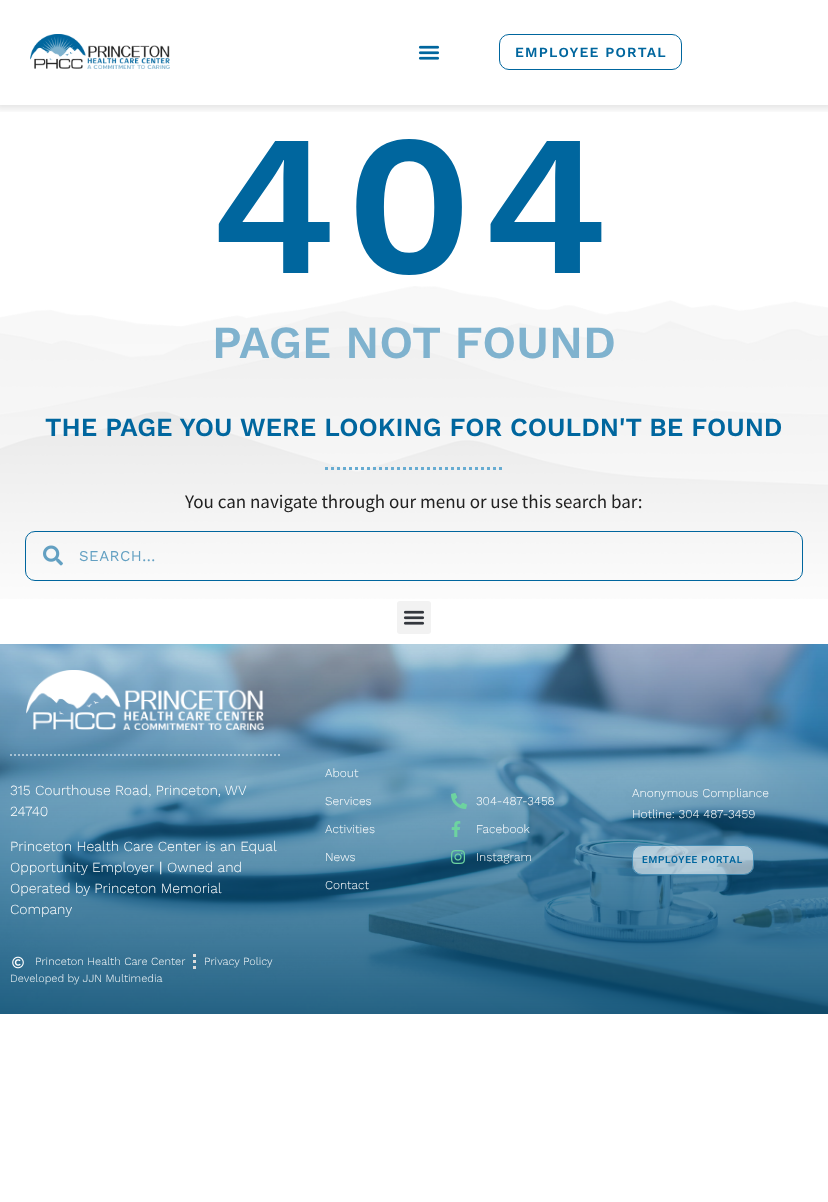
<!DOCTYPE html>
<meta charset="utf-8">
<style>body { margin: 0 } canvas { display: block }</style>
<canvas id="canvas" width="828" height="1202"></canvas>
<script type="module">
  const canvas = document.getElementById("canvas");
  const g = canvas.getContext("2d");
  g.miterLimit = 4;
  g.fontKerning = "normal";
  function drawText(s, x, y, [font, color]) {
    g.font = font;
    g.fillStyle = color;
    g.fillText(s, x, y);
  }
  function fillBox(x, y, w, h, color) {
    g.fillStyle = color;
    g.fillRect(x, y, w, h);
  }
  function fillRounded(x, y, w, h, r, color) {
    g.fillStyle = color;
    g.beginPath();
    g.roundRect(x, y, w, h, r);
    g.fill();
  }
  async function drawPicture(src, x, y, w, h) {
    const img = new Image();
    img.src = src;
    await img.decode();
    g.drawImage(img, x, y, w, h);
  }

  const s1 = ["600 14px Work Sans", "#00669E"];
  const s2 = ["600 200px Work Sans", "#00669E"];
  const s3 = ["600 46px Work Sans", "#7FB2CE"];
  const s4 = ["600 26px Work Sans", "#00669E"];
  const s5 = ["19px Source Sans Pro", "#212121"];
  const s6 = ["15px Work Sans", "#63A0C2"];
  const s7 = ["300 14px Work Sans", "#FFFFFF"];
  const s8 = ["14px Work Sans", "#FFFFFF"];
  const s9 = ["300 11px Work Sans", "#F9FBFC"];
  const s10 = ["300 12px Work Sans", "#FFFFFF"];
  const s11 = ["600 10px Roboto", "#00669E"];

  fillBox(0, 0, 828, 1202, "#FFFFFF");
  g.save();
  g.beginPath();
  g.rect(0, 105, 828, 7);
  g.clip();
  g.fillStyle = "rgba(0, 0, 0, 0.1)";
  g.filter = "blur(3.5px)";
  g.beginPath();
  g.rect(-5, -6, 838, 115);
  g.fill();
  g.filter = "none";
  g.restore();
  await drawPicture("pic1.png", 30, 34, 140, 35);
  await drawPicture("pic2.png", 418, 45, 22, 15);
  g.beginPath();
  g.roundRect(499.5, 34.5, 182, 35, 9.5);
  g.strokeStyle = "#00669E";
  g.stroke();
  g.letterSpacing = "1.25px";
  drawText("EMPLOYEE PORTAL", 515, 57, s1);
  g.letterSpacing = "9px";
  drawText("404", 210, 273, s2);
  await drawPicture("pic5.png", 0, 286, 828, 313);
  g.letterSpacing = "0px";
  drawText("PAGE NOT FOUND", 212, 358, s3);
  drawText("THE PAGE YOU WERE LOOKING FOR COULDN'T BE FOUND", 45, 436, s4);
  g.beginPath();
  g.moveTo(325, 468.5);
  g.lineTo(503, 468.5);
  g.strokeStyle = "#67ACD2";
  g.lineWidth = 3;
  g.setLineDash([3, 3]);
  g.stroke();
  drawText("You can navigate through our menu or use this search bar:", 185, 508, s5);
  g.beginPath();
  g.roundRect(25.5, 531.5, 777, 49, 9.5);
  g.strokeStyle = "#00669E";
  g.lineWidth = 1;
  g.setLineDash([]);
  g.stroke();
  await drawPicture("pic3.png", 43, 545, 20, 21);
  g.letterSpacing = "0.5px";
  drawText("SEARCH...", 79, 561, s6);
  fillRounded(397, 601, 34, 33, 3, "#F2F2F2");
  await drawPicture("pic4.png", 403, 610, 22, 15);
  await drawPicture("pic6.png", 0, 644, 828, 370);
  await drawPicture("pic7.png", 26, 670, 238, 60);
  g.beginPath();
  g.moveTo(10, 755);
  g.lineTo(280, 755);
  g.strokeStyle = "rgba(255, 255, 255, 0.5)";
  g.lineWidth = 2;
  g.setLineDash([2, 2]);
  g.stroke();
  g.letterSpacing = "0px";
  drawText("315 Courthouse Road, Princeton, WV", 10, 795, s7);
  drawText("24740", 10, 816, s7);
  drawText("Princeton Health Care Center is an Equal", 10, 851, s7);
  drawText("Opportunity Employer", 10, 872, s7);
  drawText("|", 159, 872, s8);
  drawText("Owned and", 167, 872, s7);
  drawText("Operated by Princeton Memorial", 10, 893, s7);
  drawText("Company", 10, 914, s7);
  await drawPicture("pic8.png", 12, 956, 12, 13);
  drawText("Princeton Health Care Center", 35, 965, s9);
  g.beginPath();
  g.moveTo(194.5, 954);
  g.lineTo(194.5, 957);
  g.moveTo(194.5, 960);
  g.lineTo(194.5, 963);
  g.moveTo(194.5, 966);
  g.lineTo(194.5, 969);
  g.strokeStyle = "#DDDDDD";
  g.lineWidth = 3;
  g.setLineDash([]);
  g.stroke();
  drawText("Privacy Policy", 204, 965, s9);
  drawText("Developed by JJN Multimedia", 10, 982, s9);
  drawText("About", 325, 777, s10);
  drawText("Services", 325, 805, s10);
  drawText("Activities", 325, 833, s10);
  drawText("News", 325, 861, s10);
  drawText("Contact", 325, 889, s10);
  await drawPicture("pic9.png", 451, 793, 16, 16);
  drawText("304-487-3458", 476, 805, s10);
  await drawPicture("pic10.png", 451, 821, 10, 16);
  drawText("Facebook", 476, 833, s10);
  await drawPicture("pic11.png", 451, 850, 14, 14);
  drawText("Instagram", 476, 861, s10);
  drawText("Anonymous Compliance", 632, 797, s10);
  drawText("Hotline: 304 487-3459", 632, 818, s10);
  fillRounded(632, 845, 122, 30, 10, "rgba(255, 255, 255, 0.57)");
  g.beginPath();
  g.roundRect(632.5, 845.5, 121, 29, 9.5);
  g.strokeStyle = "rgba(0, 102, 158, 0.59)";
  g.lineWidth = 1;
  g.stroke();
  g.letterSpacing = "0.75px";
  drawText("EMPLOYEE PORTAL", 642, 863, s11);
</script>
